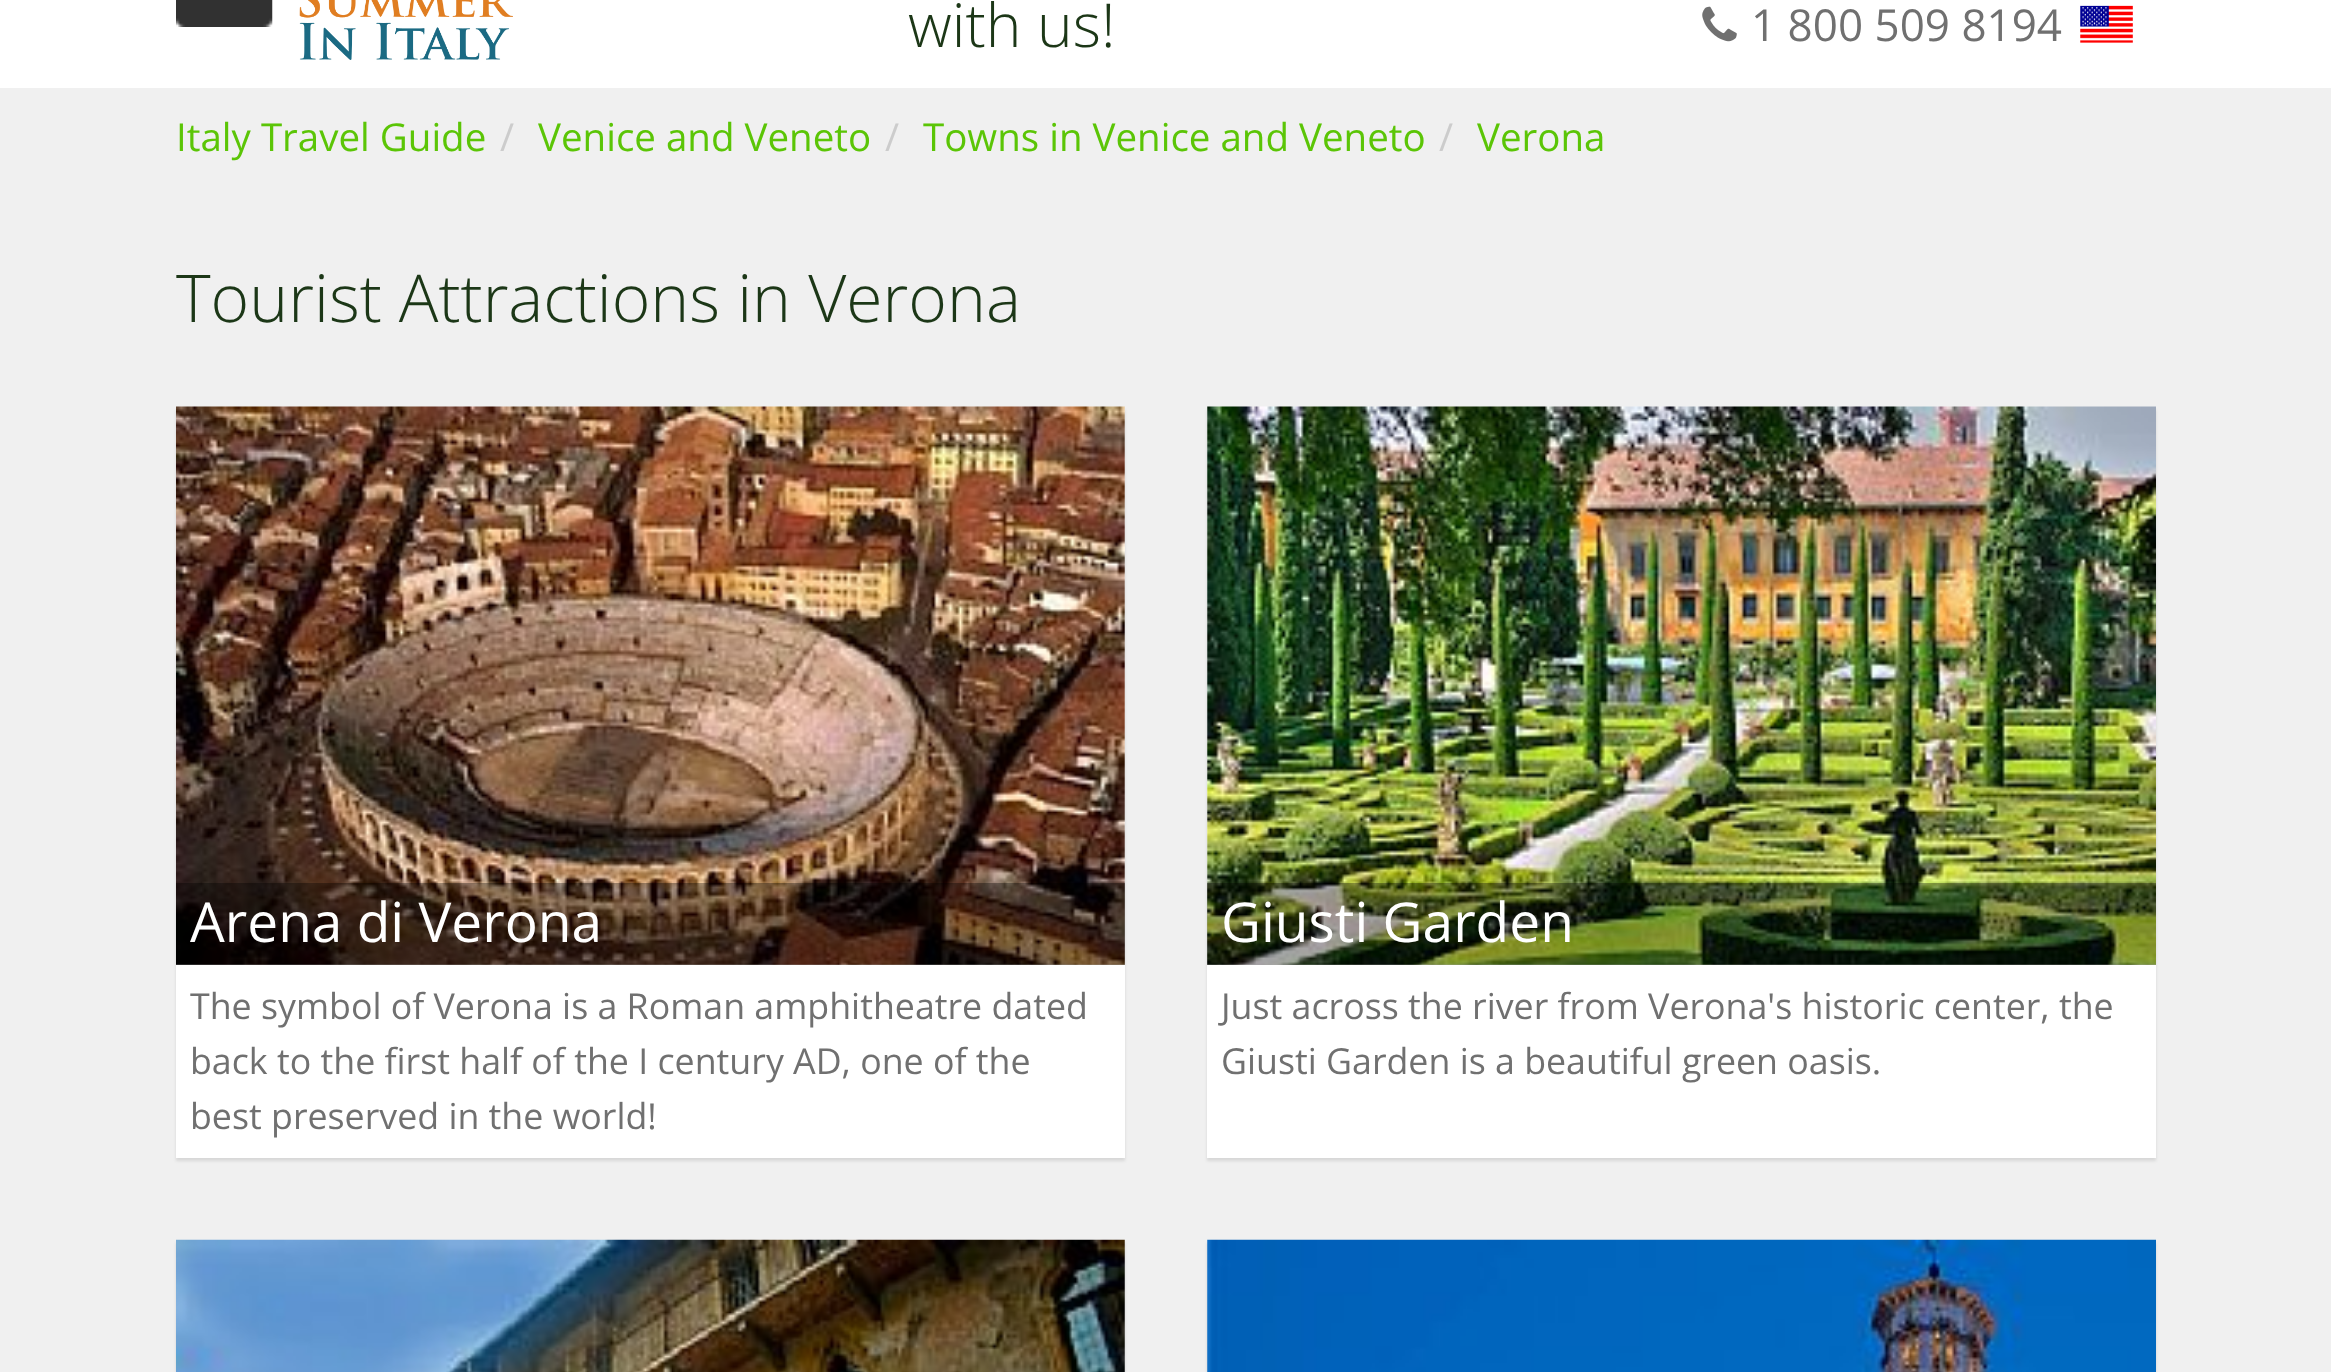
<!DOCTYPE html>
<meta charset="utf-8">
<style>body { margin: 0 } canvas { display: block }</style>
<canvas id="canvas" width="2331" height="1372"></canvas>
<script type="module">
  const canvas = document.getElementById("canvas");
  const g = canvas.getContext("2d");
  g.miterLimit = 4;
  g.fontKerning = "normal";
  function drawText(s, x, y, [font, color]) {
    g.font = font;
    g.fillStyle = color;
    g.fillText(s, x, y);
  }
  function fillBox(x, y, w, h, color) {
    g.fillStyle = color;
    g.fillRect(x, y, w, h);
  }
  async function drawPicture(src, x, y, w, h) {
    const img = new Image();
    img.src = src;
    await img.decode();
    g.drawImage(img, x, y, w, h);
  }

  const s1 = ["300 60.5px Open Sans", "#1C3717"];
  const s2 = ["44px Open Sans", "#707070"];
  const s3 = ["38.5px Open Sans", "#5BC506"];
  const s4 = ["38.5px Open Sans", "#CCCCCC"];
  const s5 = ["300 66px Open Sans", "#1C3717"];
  const s6 = ["55px Open Sans", "#FFFFFF"];
  const s7 = ["35.75px Open Sans", "#707070"];

  fillBox(0, 0, 2331, 1372, "#F0F0F0");
  fillBox(0, 0, 2331, 88, "#FFFFFF");
  await drawPicture("pic1.png", 176, 0, 97, 27);
  await drawPicture("pic2.png", 299, 0, 214, 60);
  drawText("with us!", 908, 47, s1);
  await drawPicture("pic3.png", 1702, 6, 35, 36);
  drawText("1 800 509 8194", 1751, 41, s2);
  await drawPicture("pic4.png", 2080, 5, 53, 38);
  drawText("Italy Travel Guide", 176, 151, s3);
  drawText("/", 500, 151, s4);
  drawText("Venice and Veneto", 538, 151, s3);
  drawText("/", 885, 151, s4);
  drawText("Towns in Venice and Veneto", 923, 151, s3);
  drawText("/", 1439, 151, s4);
  drawText("Verona", 1477, 151, s3);
  drawText("Tourist Attractions in Verona", 176, 322, s5);
  g.fillStyle = "rgba(0, 0, 0, 0.1)";
  g.filter = "blur(1.5px)";
  g.beginPath();
  g.rect(176, 410, 949, 751);
  g.fill();
  g.filter = "none";
  fillBox(176, 407, 949, 751, "#FFFFFF");
  await drawPicture("pic5.png", 176, 406, 949, 559);
  fillBox(176, 883, 949, 82, "rgba(0, 0, 0, 0.35)");
  drawText("Arena di Verona", 190, 942, s6);
  drawText("The symbol of Verona is a Roman amphitheatre dated", 190, 1019, s7);
  drawText("back to the first half of the I century AD, one of the", 190, 1074, s7);
  drawText("best preserved in the world!", 190, 1129, s7);
  g.fillStyle = "rgba(0, 0, 0, 0.1)";
  g.filter = "blur(1.5px)";
  g.beginPath();
  g.rect(1207, 410, 949, 751);
  g.fill();
  g.filter = "none";
  fillBox(1207, 407, 949, 751, "#FFFFFF");
  await drawPicture("pic6.png", 1207, 406, 949, 559);
  fillBox(1207, 883, 949, 82, "rgba(0, 0, 0, 0.35)");
  drawText("Giusti Garden", 1221, 942, s6);
  drawText("Just across the river from Verona's historic center, the", 1221, 1019, s7);
  drawText("Giusti Garden is a beautiful green oasis.", 1221, 1074, s7);
  g.fillStyle = "rgba(0, 0, 0, 0.1)";
  g.filter = "blur(1.5px)";
  g.beginPath();
  g.rect(176, 1243, 949, 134);
  g.fill();
  g.filter = "none";
  await drawPicture("pic7.png", 176, 1239, 949, 133);
  g.filter = "blur(1.5px)";
  g.beginPath();
  g.rect(1207, 1243, 949, 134);
  g.fill();
  g.filter = "none";
  await drawPicture("pic8.png", 1207, 1239, 949, 133);
</script>
